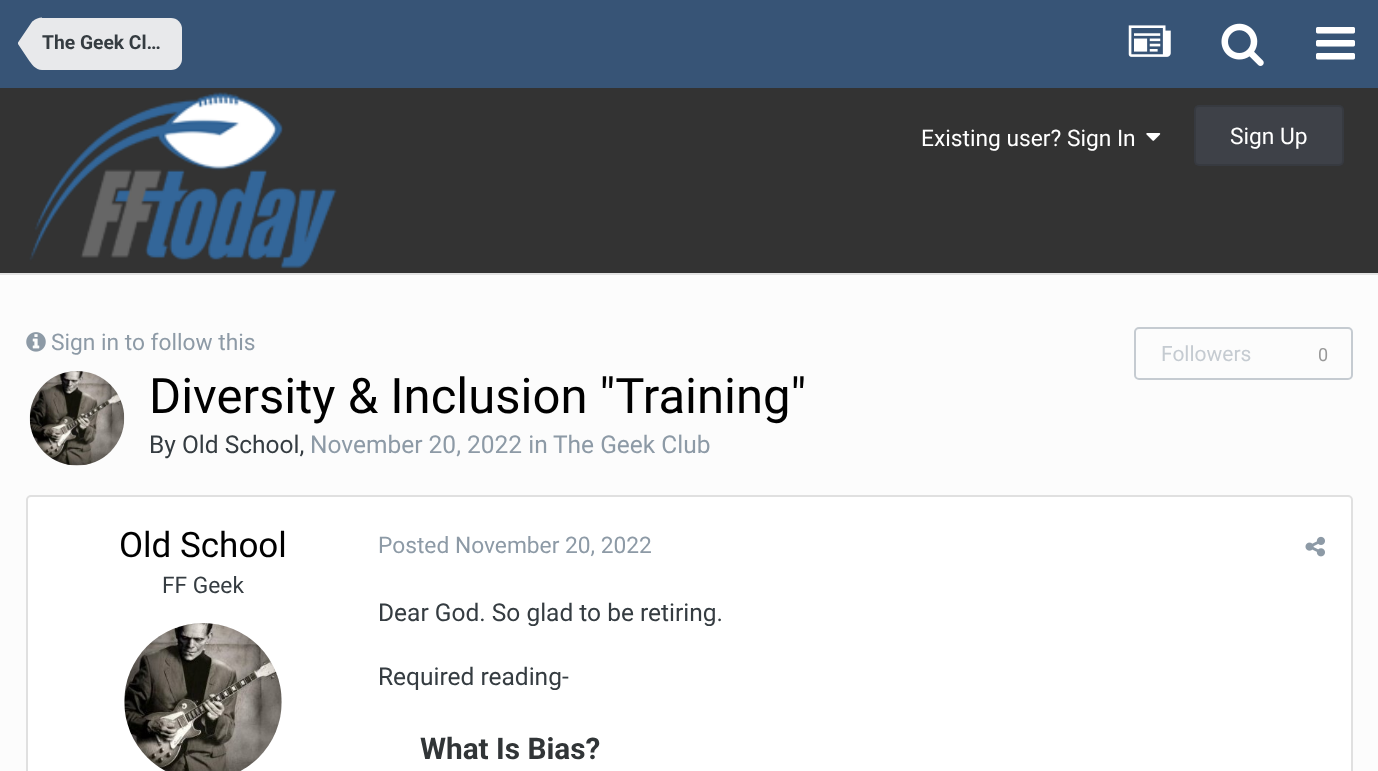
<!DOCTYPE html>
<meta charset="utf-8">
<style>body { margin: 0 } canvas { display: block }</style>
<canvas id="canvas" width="1378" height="771"></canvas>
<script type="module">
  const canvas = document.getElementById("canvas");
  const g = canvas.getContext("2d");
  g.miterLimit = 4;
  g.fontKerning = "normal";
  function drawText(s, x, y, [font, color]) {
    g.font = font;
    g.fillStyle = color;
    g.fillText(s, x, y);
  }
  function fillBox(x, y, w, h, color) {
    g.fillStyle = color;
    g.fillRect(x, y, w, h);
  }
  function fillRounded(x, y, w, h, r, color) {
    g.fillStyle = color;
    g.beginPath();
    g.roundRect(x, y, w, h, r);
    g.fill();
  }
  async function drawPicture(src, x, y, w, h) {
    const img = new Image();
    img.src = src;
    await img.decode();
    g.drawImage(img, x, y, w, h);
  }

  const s1 = ["bold 19.25px Roboto", "#353C41"];
  const s2 = ["22.75px Roboto", "#FFFFFF"];
  const s3 = ["22.75px Roboto", "#8D9AA6"];
  const s4 = ["21px Roboto", "#C5CBD1"];
  const s5 = ["18px Roboto", "#989898"];
  const s6 = ["49px Roboto", "#000000"];
  const s7 = ["24.5px Roboto", "#353C41"];
  const s8 = ["24.5px Roboto", "#8D9AA6"];
  const s9 = ["35px Roboto", "#000000"];
  const s10 = ["22.75px Roboto", "#353C41"];
  const s11 = ["bold 29.75px Roboto", "#313537"];

  fillBox(0, 0, 1378, 771, "#FCFCFC");
  fillBox(0, 273, 1378, 2, "#E3E3E3");
  fillBox(0, 0, 1378, 88, "#375476");
  g.fillStyle = "#E8E9EB";
  g.beginPath();
  g.roundRect(42, 18, 140, 52, [0, 11, 11, 0]);
  g.fill();
  g.beginPath();
  g.moveTo(18, 44);
  g.lineTo(42, 44);
  g.lineTo(42, 70);
  g.bezierCurveTo(35.5, 70, 31.5, 64, 28, 59);
  g.closePath();
  g.moveTo(42, 17.5);
  g.lineTo(42, 44);
  g.lineTo(18, 44);
  g.lineTo(18, 42.5);
  g.lineTo(30.5, 24);
  g.bezierCurveTo(32, 22, 31.5, 22, 33, 21);
  g.bezierCurveTo(35.5, 19, 39, 17.5, 42, 17.5);
  g.closePath();
  g.fill();
  drawText("The Geek Cl…", 42, 49, s1);
  await drawPicture("pic1.png", 1128, 25, 43, 32);
  await drawPicture("pic2.png", 1221, 23, 43, 43);
  await drawPicture("pic3.png", 1316, 27, 39, 33);
  fillBox(0, 88, 1378, 185, "#333333");
  await drawPicture("pic4.png", 29, 92, 308, 177);
  drawText("Existing user? Sign In", 921, 146, s2);
  await drawPicture("pic5.png", 1146, 133, 15, 8);
  fillRounded(1194, 105, 150, 61, 5, "#3E4148");
  g.beginPath();
  g.roundRect(1195, 106, 148, 59, 4);
  g.strokeStyle = "rgba(0, 0, 0, 0.1)";
  g.lineWidth = 2;
  g.stroke();
  drawText("Sign Up", 1230, 144, s2);
  await drawPicture("pic6.png", 26, 332, 20, 20);
  drawText("Sign in to follow this", 51, 350, s3);
  g.beginPath();
  g.roundRect(1135, 328, 217, 51, 4);
  g.strokeStyle = "#C5CBD1";
  g.stroke();
  drawText("Followers", 1161, 361, s4);
  drawText("0", 1318, 361, s5);
  fillRounded(30, 371, 94, 95, 47, "#FFFFFF");
  await drawPicture("pic7.png", 29, 371, 96, 95);
  drawText("Diversity & Inclusion \"Training\"", 149, 413, s6);
  drawText("By Old School,", 149, 453, s7);
  drawText("November 20, 2022 in", 310, 453, s8);
  drawText("The Geek Club", 553, 453, s8);
  g.fillStyle = "#FFFFFF";
  g.beginPath();
  g.roundRect(27, 496, 1325, 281, 4);
  g.fill();
  g.strokeStyle = "#E0E0E0";
  g.stroke();
  drawText("Old School", 119, 557, s9);
  drawText("FF Geek", 162, 593, s10);
  await drawPicture("pic8.png", 124, 623, 158, 148);
  drawText("Posted November 20, 2022", 378, 553, s3);
  await drawPicture("pic9.png", 1305, 536, 20, 21);
  drawText("Dear God. So glad to be retiring.", 378, 621, s7);
  drawText("Required reading-", 378, 685, s7);
  drawText("What Is Bias?", 420, 759, s11);
</script>
